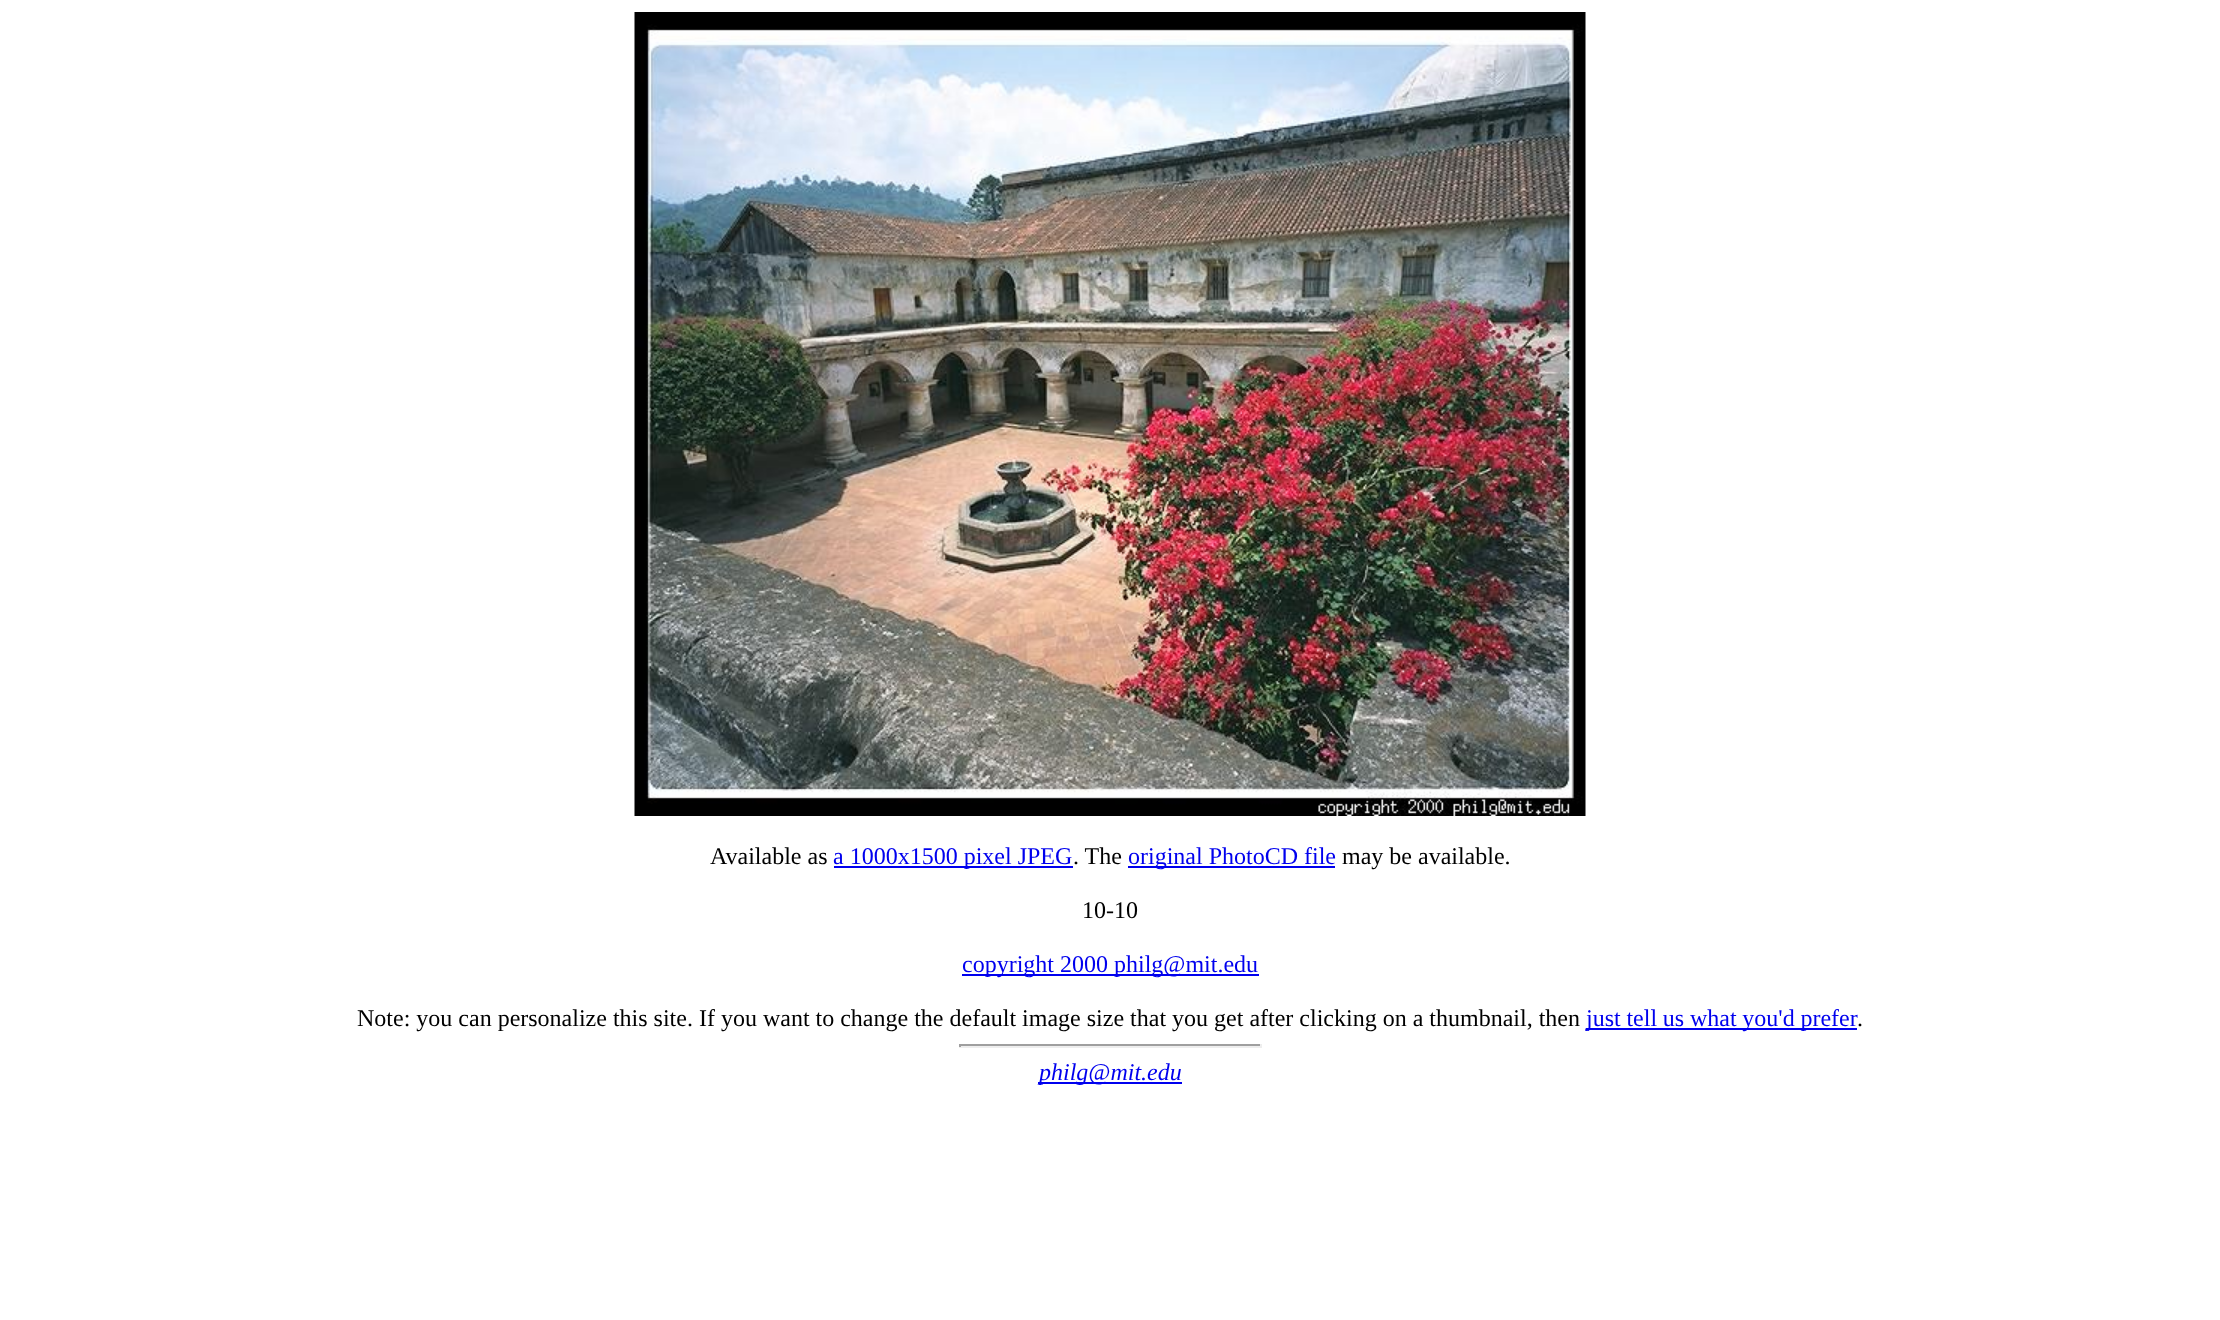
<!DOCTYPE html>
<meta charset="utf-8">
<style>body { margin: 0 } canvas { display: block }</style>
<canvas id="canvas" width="2220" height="1320"></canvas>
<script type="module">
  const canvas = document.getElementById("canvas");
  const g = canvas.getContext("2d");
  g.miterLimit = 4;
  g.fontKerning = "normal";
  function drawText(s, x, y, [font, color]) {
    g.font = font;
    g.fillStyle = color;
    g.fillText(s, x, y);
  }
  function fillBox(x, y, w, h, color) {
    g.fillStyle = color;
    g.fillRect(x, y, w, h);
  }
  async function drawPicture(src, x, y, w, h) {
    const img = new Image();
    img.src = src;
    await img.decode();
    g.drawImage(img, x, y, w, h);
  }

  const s1 = ["24px Liberation Serif", "#000000"];
  const s2 = ["24px Liberation Serif", "#0000EE"];
  const s3 = ["italic 24px Liberation Serif", "#0000EE"];

  fillBox(0, 0, 2220, 1320, "#FFFFFF");
  await drawPicture("pic1.png", 634, 12, 952, 804);
  drawText("Available as", 710, 864, s1);
  fillBox(834, 866, 239, 2, "#0000EE");
  drawText("a 1000x1500 pixel JPEG", 833, 864, s2);
  drawText(". The", 1073, 864, s1);
  fillBox(1128, 866, 207, 2, "#0000EE");
  drawText("original PhotoCD file", 1128, 864, s2);
  drawText("may be available.", 1342, 864, s1);
  drawText("10-10", 1082, 918, s1);
  fillBox(962, 974, 297, 2, "#0000EE");
  drawText("copyright 2000 philg@mit.edu", 962, 972, s2);
  drawText("Note: you can personalize this site. If you want to change the default image size that you get after clicking on a thumbnail, then", 357, 1026, s1);
  fillBox(1586, 1028, 271, 2, "#0000EE");
  g.wordSpacing = "-0.25px";
  drawText("just tell us what you'd prefer", 1586, 1026, s2);
  g.wordSpacing = "0px";
  drawText(".", 1857, 1026, s1);
  fillBox(959, 1044, 303, 2, "#9F9F9F");
  fillBox(1260, 1044, 2, 3, "#EEEEEE");
  fillBox(959, 1046, 303, 2, "#EEEEEE");
  fillBox(959, 1044, 2, 3, "#9F9F9F");
  fillBox(1038, 1082, 144, 2, "#0000EE");
  drawText("philg@mit.edu", 1039, 1080, s3);
</script>
